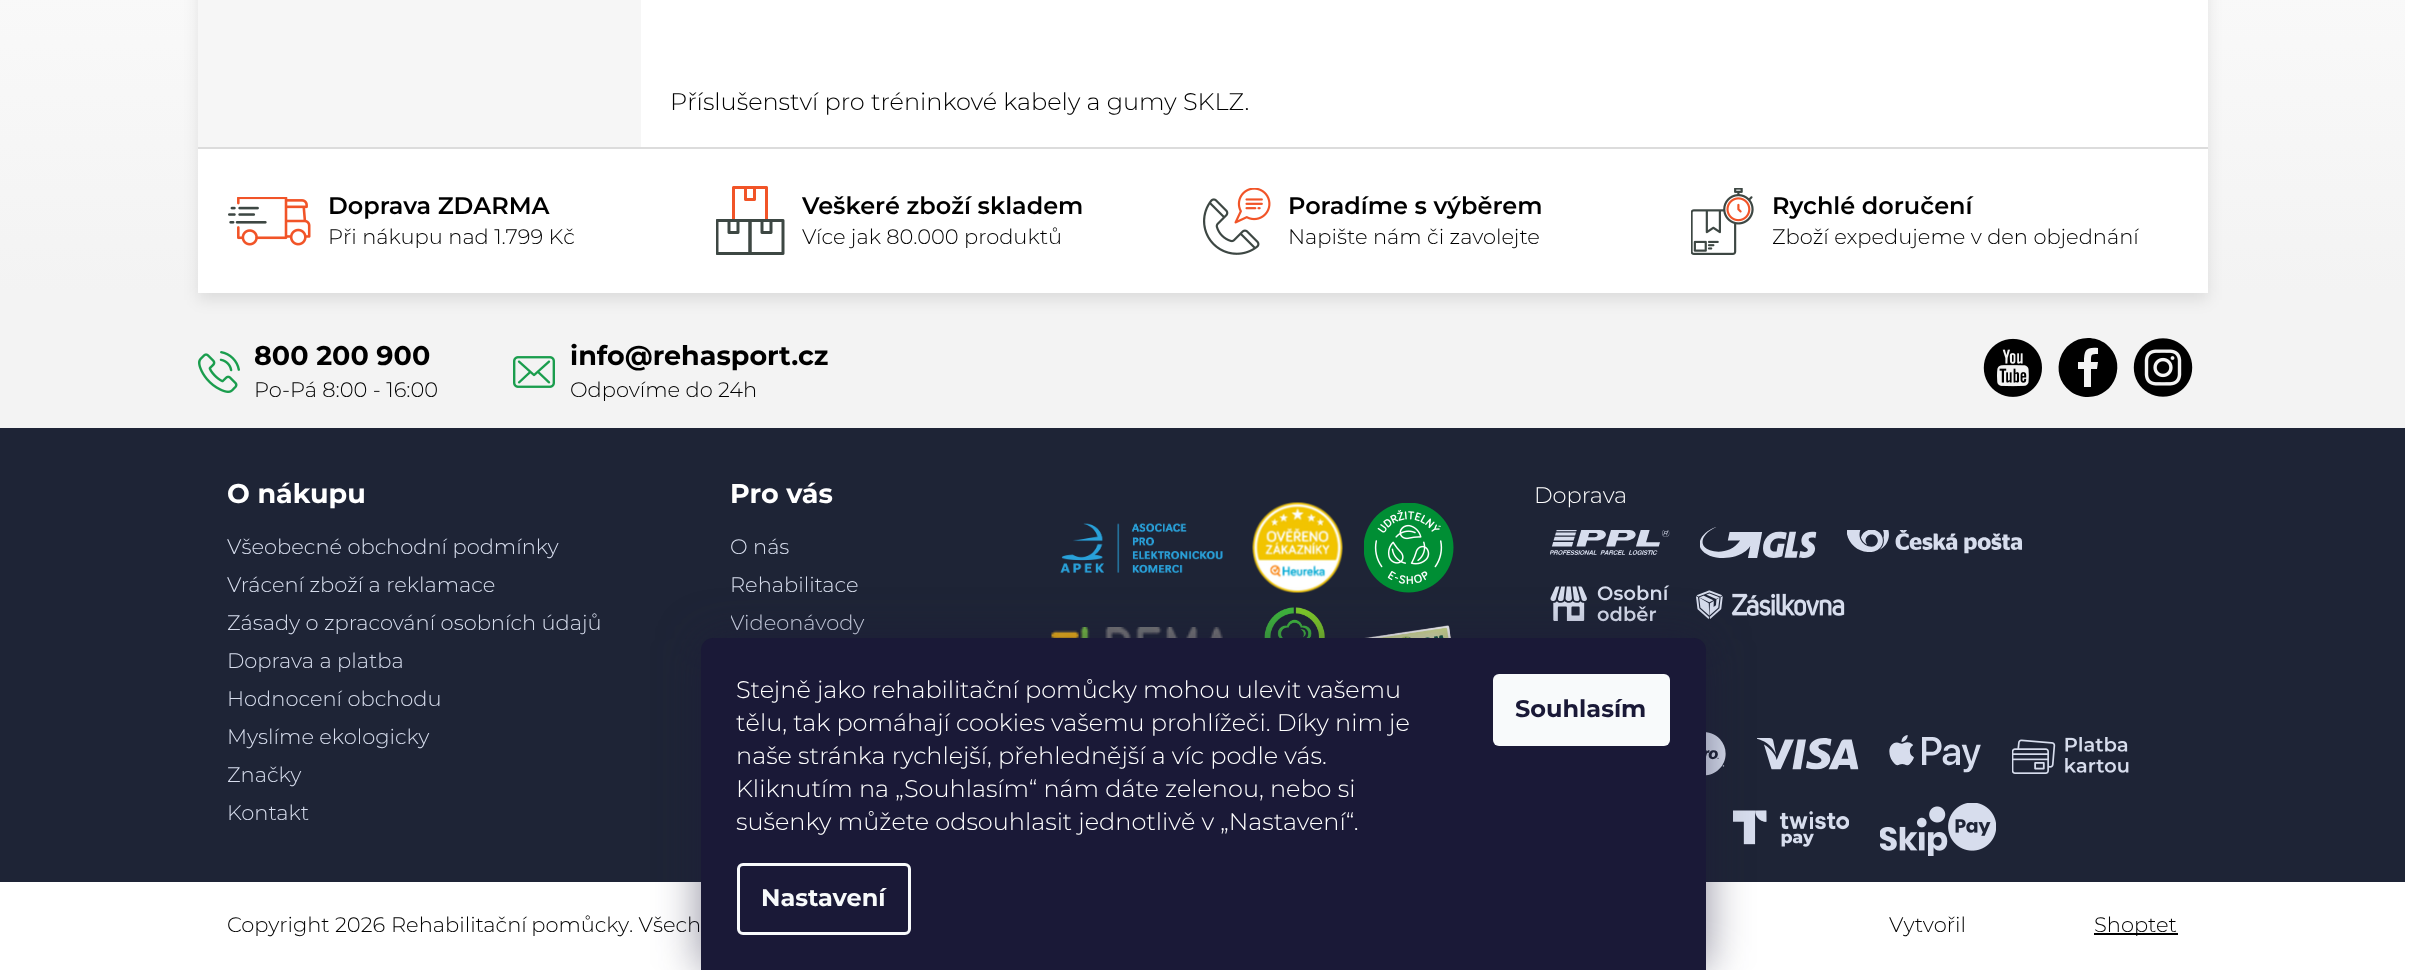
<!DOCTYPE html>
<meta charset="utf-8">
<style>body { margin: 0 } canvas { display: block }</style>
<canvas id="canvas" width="2426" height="970"></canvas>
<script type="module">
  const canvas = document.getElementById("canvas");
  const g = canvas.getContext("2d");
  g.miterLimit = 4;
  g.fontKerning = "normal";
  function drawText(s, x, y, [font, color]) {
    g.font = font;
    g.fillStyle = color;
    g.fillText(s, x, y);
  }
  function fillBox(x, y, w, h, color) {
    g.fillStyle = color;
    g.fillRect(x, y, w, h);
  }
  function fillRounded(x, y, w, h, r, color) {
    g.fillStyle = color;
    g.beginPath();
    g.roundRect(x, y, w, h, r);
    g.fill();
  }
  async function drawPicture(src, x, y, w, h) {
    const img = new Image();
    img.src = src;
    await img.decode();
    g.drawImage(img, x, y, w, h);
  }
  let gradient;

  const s1 = ["300 24px Montserrat", "#000000"];
  const s2 = ["600 24px Montserrat", "#000000"];
  const s3 = ["300 21px Montserrat", "#000000"];
  const s4 = ["bold 27px Montserrat", "#000000"];
  const s5 = ["bold 27px Montserrat", "#FFFFFF"];
  const s6 = ["300 21px Montserrat", "#D7DDED"];
  const s7 = ["300 22.5px Montserrat", "#FFFFFF"];
  const s8 = ["300 24px Montserrat", "#FFFFFF"];
  const s9 = ["bold 24px Montserrat", "#F8FAFB"];
  const s10 = ["bold 24px Montserrat", "#1A1937"];

  fillBox(0, 0, 2426, 970, "#FFFFFF");
  gradient = g.createLinearGradient(1202, -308, 1202, 293);
  gradient.addColorStop(0, "#FFFFFF");
  gradient.addColorStop(1, "#F3F3F3");
  g.fillStyle = gradient;
  g.fillRect(0, 0, 2405, 293);
  fillBox(0, 293, 2208, 135, "#F3F3F3");
  g.save();
  g.beginPath();
  g.rect(0, 0, 2405, 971);
  g.clip();
  g.beginPath();
  g.moveTo(200, 428);
  g.lineTo(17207, 428);
  g.lineTo(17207, 293);
  g.lineTo(2208, 293);
  g.lineTo(2208, 428);
  g.closePath();
  g.fill();
  g.restore();
  g.fillStyle = "rgba(0, 0, 0, 0.09)";
  g.filter = "blur(7.5px)";
  g.beginPath();
  g.rect(198, -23, 2010, 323);
  g.fill();
  g.filter = "none";
  fillBox(198, 0, 2010, 293, "#FFFFFF");
  fillBox(198, 0, 443, 147, "#F6F6F6");
  drawText("Příslušenství pro tréninkové kabely a gumy SKLZ.", 670, 110, s1);
  fillBox(198, 147, 2010, 2, "#DCDCDC");
  await drawPicture("pic1.png", 228, 197, 83, 49);
  drawText("Doprava ZDARMA", 328, 214, s2);
  drawText("Při nákupu nad 1.799 Kč", 328, 244, s3);
  await drawPicture("pic2.png", 716, 186, 69, 69);
  drawText("Veškeré zboží skladem", 802, 214, s2);
  drawText("Více jak 80.000 produktů", 802, 244, s3);
  await drawPicture("pic3.png", 1203, 188, 68, 67);
  drawText("Poradíme s výběrem", 1288, 214, s2);
  drawText("Napište nám či zavolejte", 1288, 244, s3);
  await drawPicture("pic4.png", 1691, 188, 63, 67);
  drawText("Rychlé doručení", 1772, 214, s2);
  drawText("Zboží expedujeme v den objednání", 1772, 244, s3);
  fillBox(0, 428, 2405, 454, "#1E2436");
  await drawPicture("pic5.png", 198, 351, 42, 42);
  drawText("800 200 900", 254, 365, s4);
  drawText("Po-Pá 8:00 - 16:00", 254, 397, s3);
  await drawPicture("pic6.png", 513, 356, 42, 32);
  drawText("info@rehasport.cz", 570, 365, s4);
  drawText("Odpovíme do 24h", 570, 397, s3);
  await drawPicture("pic7.png", 1983, 338, 59, 59);
  g.beginPath();
  g.moveTo(2088, 397);
  g.bezierCurveTo(2116, 397, 2128, 361, 2106, 344);
  g.bezierCurveTo(2101, 340, 2094, 338, 2088, 338);
  g.bezierCurveTo(2060, 338, 2048, 374, 2070, 391);
  g.bezierCurveTo(2075, 395, 2082, 397, 2088, 397);
  g.closePath();
  g.moveTo(2078, 362);
  g.lineTo(2084, 362);
  g.bezierCurveTo(2084, 350, 2086, 347, 2098, 348);
  g.lineTo(2098, 354);
  g.bezierCurveTo(2091, 354, 2091, 354, 2091, 362);
  g.lineTo(2098, 362);
  g.lineTo(2097, 369);
  g.lineTo(2091, 369);
  g.lineTo(2091, 387);
  g.lineTo(2084, 387);
  g.lineTo(2084, 369);
  g.lineTo(2078, 369);
  g.closePath();
  g.fill();
  await drawPicture("pic8.png", 2133, 338, 60, 59);
  drawText("O nákupu", 227, 503, s5);
  drawText("Všeobecné obchodní podmínky", 227, 554, s6);
  drawText("Vrácení zboží a reklamace", 227, 592, s6);
  drawText("Zásady o zpracování osobních údajů", 227, 630, s6);
  drawText("Doprava a platba", 227, 668, s6);
  drawText("Hodnocení obchodu", 227, 706, s6);
  drawText("Myslíme ekologicky", 227, 744, s6);
  drawText("Značky", 227, 782, s6);
  drawText("Kontakt", 227, 820, s6);
  drawText("Pro vás", 730, 503, s5);
  drawText("O nás", 730, 554, s6);
  drawText("Rehabilitace", 730, 592, s6);
  g.save();
  g.beginPath();
  g.rect(731, 443, 241, 415);
  g.clip();
  drawText("Videonávody", 730, 630, s6);
  g.restore();
  drawText("Doprava", 1534, 503, s7);
  await drawPicture("pic9.png", 1550, 530, 120, 25);
  await drawPicture("pic10.png", 1700, 527, 117, 31);
  await drawPicture("pic11.png", 1847, 530, 175, 24);
  await drawPicture("pic12.png", 1550, 585, 120, 37);
  await drawPicture("pic13.png", 1696, 590, 149, 30);
  await drawPicture("pic14.png", 1706, 732, 20, 44);
  await drawPicture("pic15.png", 1757, 738, 102, 32);
  await drawPicture("pic16.png", 1889, 735, 92, 38);
  await drawPicture("pic17.png", 2012, 737, 117, 37);
  await drawPicture("pic18.png", 1733, 810, 116, 37);
  await drawPicture("pic19.png", 1880, 803, 116, 53);
  await drawPicture("pic20.png", 1060, 523, 163, 50);
  await drawPicture("pic21.png", 1252, 502, 91, 91);
  await drawPicture("pic22.png", 1364, 503, 90, 90);
  await drawPicture("pic23.png", 1051, 627, 172, 11);
  await drawPicture("pic24.png", 1264, 607, 61, 31);
  await drawPicture("pic25.png", 1364, 625, 88, 13);
  drawText("Copyright 2026", 227, 932, s3);
  g.wordSpacing = "-1px";
  drawText("Rehabilitační pomůcky", 391, 932, s3);
  g.wordSpacing = "0px";
  drawText(". Všech", 629, 932, s3);
  drawText("Vytvořil", 1889, 932, s3);
  fillBox(2094, 933, 84, 2, "#000000");
  drawText("Shoptet", 2094, 932, s3);
  g.fillStyle = "rgba(27, 25, 57, 0.5)";
  g.filter = "blur(22.5px)";
  g.beginPath();
  g.roundRect(701, 638, 1005, 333, 12);
  g.fill();
  g.filter = "none";
  g.fillStyle = "#1A1937";
  g.beginPath();
  g.moveTo(713, 638);
  g.lineTo(1694, 638);
  g.bezierCurveTo(1700.5, 638, 1706, 643.5, 1706, 650);
  g.lineTo(1706, 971);
  g.lineTo(701, 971);
  g.lineTo(701, 650);
  g.bezierCurveTo(701, 643.5, 706.5, 638, 713, 638);
  g.closePath();
  g.fill();
  drawText("Stejně jako rehabilitační pomůcky mohou ulevit vašemu", 736, 698, s8);
  drawText("tělu, tak pomáhají cookies vašemu prohlížeči. Díky nim je", 736, 731, s8);
  drawText("naše stránka rychlejší, přehlednější a víc podle vás.", 736, 764, s8);
  drawText("Kliknutím na „Souhlasím“ nám dáte zelenou, nebo si", 736, 797, s8);
  drawText("sušenky můžete odsouhlasit jednotlivě v „Nastavení“.", 736, 830, s8);
  g.beginPath();
  g.roundRect(738.5, 864.5, 171, 69, 4.5);
  g.strokeStyle = "#F8FAFB";
  g.lineWidth = 3;
  g.stroke();
  drawText("Nastavení", 761, 906, s9);
  fillRounded(1493, 674, 177, 72, 6, "#F8FAFB");
  drawText("Souhlasím", 1515, 717, s10);
</script>
